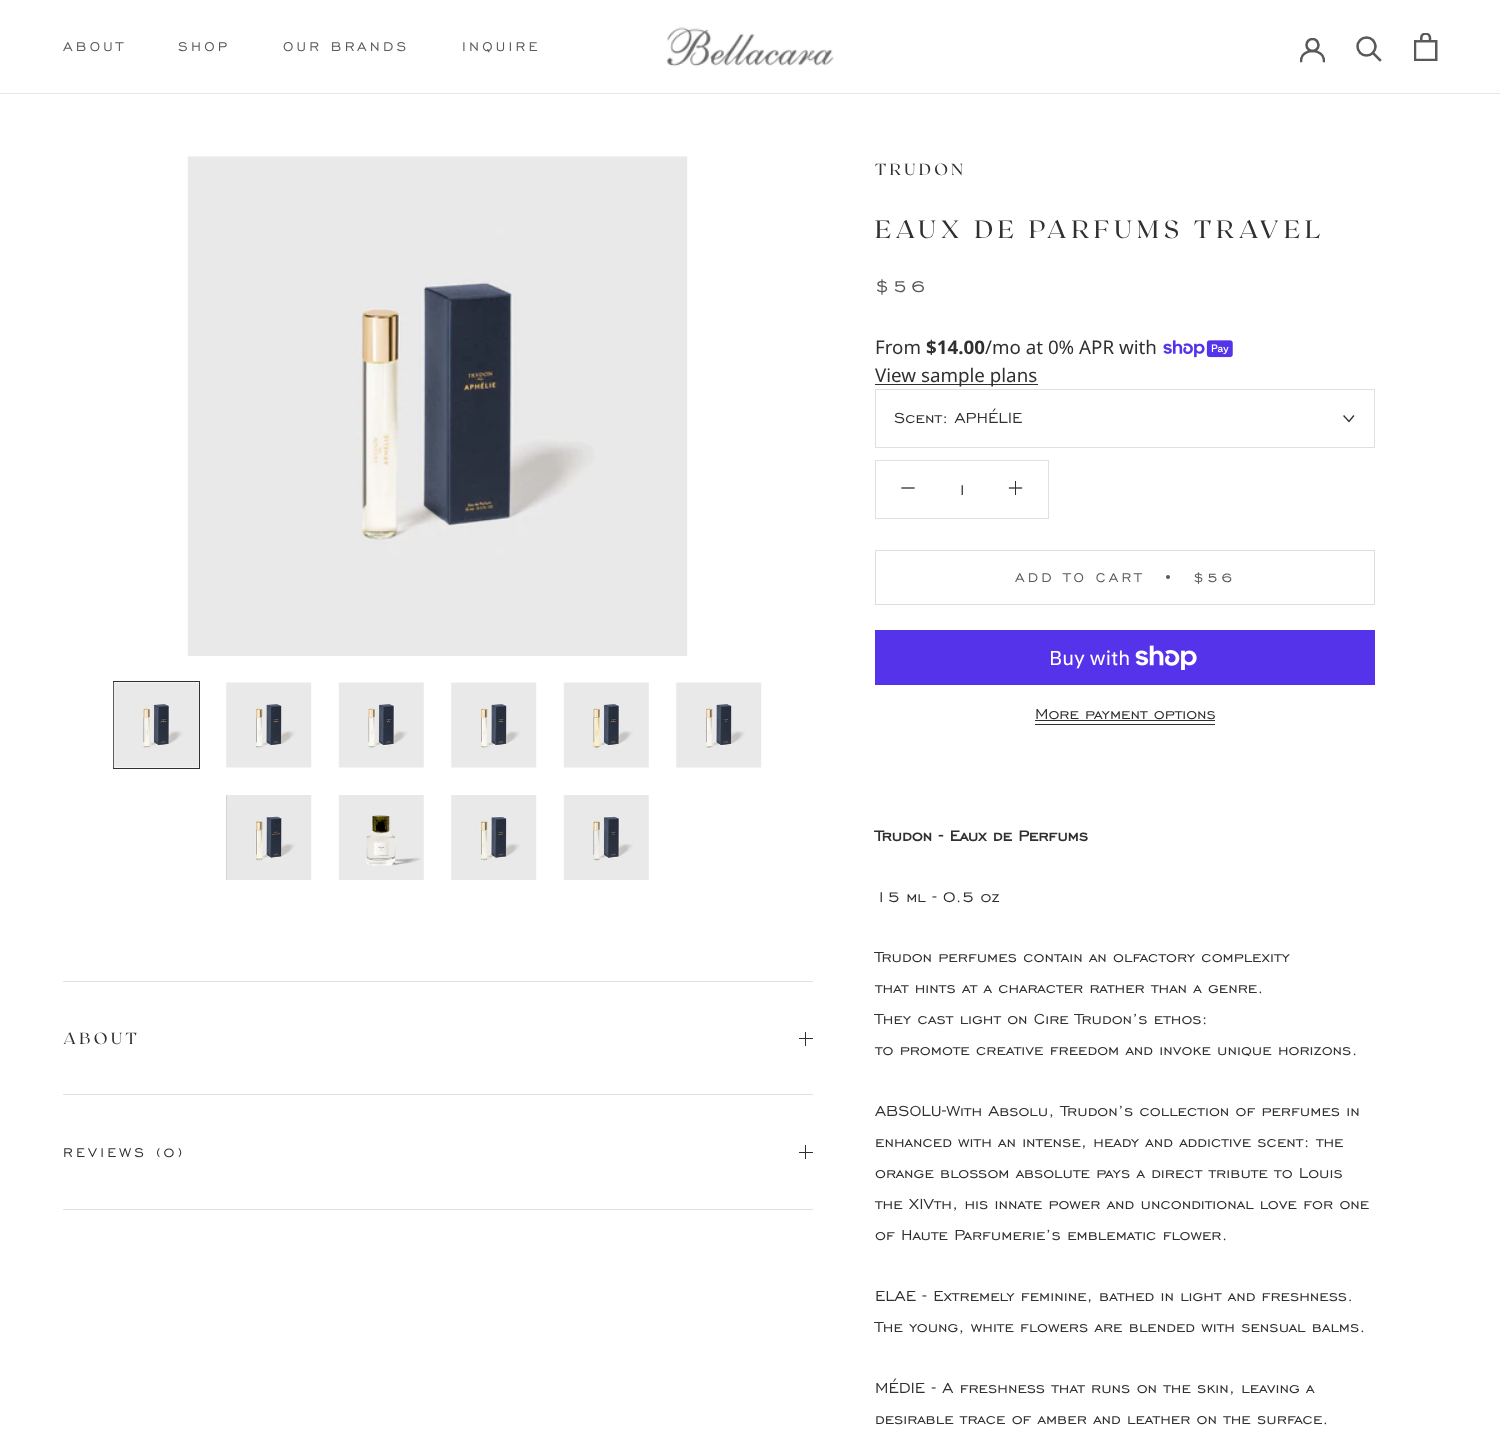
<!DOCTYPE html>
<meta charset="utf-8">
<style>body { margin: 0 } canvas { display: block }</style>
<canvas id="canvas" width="1500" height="1455"></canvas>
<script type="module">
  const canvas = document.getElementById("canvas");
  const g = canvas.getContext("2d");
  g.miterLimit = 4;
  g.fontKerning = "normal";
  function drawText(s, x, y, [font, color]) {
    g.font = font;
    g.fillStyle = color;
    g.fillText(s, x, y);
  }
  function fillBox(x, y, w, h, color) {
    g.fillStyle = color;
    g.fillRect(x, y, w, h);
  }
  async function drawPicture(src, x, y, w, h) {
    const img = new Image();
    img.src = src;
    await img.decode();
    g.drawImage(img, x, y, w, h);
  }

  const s1 = ["16.25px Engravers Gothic", "#595959"];
  const s2 = ["16.25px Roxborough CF", "#303030"];
  const s3 = ["25px Roxborough CF", "#303030"];
  const s4 = ["21px Engravers Gothic", "#595959"];
  const s5 = ["18.75px Noto Sans", "#303030"];
  const s6 = ["bold 18.75px Noto Sans", "#303030"];
  const s7 = ["18.75px Engravers Gothic", "#303030"];
  const s8 = ["20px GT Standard", "#FFFFFF"];
  const s9 = ["bold 18.75px Engravers Gothic", "#303030"];
  const s10 = ["16.25px Engravers Gothic", "#303030"];

  fillBox(0, 0, 1500, 1455, "#FFFFFF");
  fillBox(0, 93, 1500, 1, "#E6E6E6");
  g.letterSpacing = "3.25px";
  drawText("ABOUT", 63, 51, s1);
  drawText("SHOP", 178, 51, s1);
  drawText("OUR BRANDS", 283, 51, s1);
  drawText("INQUIRE", 462, 51, s1);
  await drawPicture("pic1.png", 666, 27, 168, 40);
  g.save();
  g.beginPath();
  g.rect(1300, 38, 25, 25);
  g.clip();
  g.beginPath();
  g.moveTo(1301, 61);
  g.bezierCurveTo(1301, 47.5, 1324, 47.5, 1324, 61);
  g.strokeStyle = "#595959";
  g.lineWidth = 2.5;
  g.lineCap = "square";
  g.stroke();
  g.beginPath();
  g.arc(1312.5, 45, 6, 0, Math.PI * 2);
  g.stroke();
  g.restore();
  g.beginPath();
  g.moveTo(1380, 60);
  g.lineTo(1373, 53);
  g.strokeStyle = "#595959";
  g.lineWidth = 2.5;
  g.lineCap = "square";
  g.stroke();
  g.beginPath();
  g.arc(1366.5, 46.5, 9, 0, Math.PI * 2);
  g.stroke();
  await drawPicture("pic2.png", 1414, 33, 24, 28);
  await drawPicture("pic3.png", 187, 156, 501, 500);
  g.strokeStyle = "#303030";
  g.lineWidth = 1;
  g.strokeRect(113.5, 681.5, 86, 87);
  await drawPicture("pic4.png", 113, 682, 86, 86);
  await drawPicture("pic5.png", 226, 682, 86, 86);
  await drawPicture("pic6.png", 338, 682, 86, 86);
  await drawPicture("pic7.png", 451, 682, 86, 86);
  await drawPicture("pic8.png", 563, 682, 86, 86);
  await drawPicture("pic9.png", 676, 682, 86, 86);
  await drawPicture("pic10.png", 226, 795, 86, 85);
  await drawPicture("pic11.png", 338, 795, 86, 85);
  await drawPicture("pic12.png", 451, 795, 86, 85);
  await drawPicture("pic13.png", 563, 795, 86, 85);
  drawText("TRUDON", 875, 175, s2);
  g.letterSpacing = "5px";
  drawText("EAUX DE PARFUMS TRAVEL", 875, 238, s3);
  g.letterSpacing = "4px";
  drawText("$56", 875, 292, s4);
  g.letterSpacing = "0px";
  drawText("From", 875, 354, s5);
  drawText("$14.00", 926, 354, s6);
  drawText("/mo at 0% APR with", 985, 354, s5);
  await drawPicture("pic14.png", 1163, 340, 70, 18);
  fillBox(875, 384, 163, 1, "#303030");
  drawText("View sample plans", 875, 382, s5);
  g.strokeStyle = "#E0E0E0";
  g.strokeRect(875.5, 389.5, 499, 58);
  drawText("Scent: APHÉLIE", 894, 423, s7);
  g.beginPath();
  g.moveTo(1353.5, 416);
  g.lineTo(1349, 421.5);
  g.lineTo(1344, 416);
  g.strokeStyle = "#303030";
  g.lineWidth = 1.3;
  g.stroke();
  g.strokeStyle = "#E0E0E0";
  g.lineWidth = 1;
  g.strokeRect(875.5, 460.5, 173, 58);
  g.beginPath();
  g.moveTo(902, 488);
  g.lineTo(914, 488);
  g.strokeStyle = "#303030";
  g.lineWidth = 1.3;
  g.stroke();
  drawText("1", 956, 495, s7);
  fillBox(1015, 481, 1, 14, "#303030");
  g.beginPath();
  g.moveTo(1009.5, 488);
  g.lineTo(1021.5, 488);
  g.stroke();
  g.strokeStyle = "#DEDEDE";
  g.lineWidth = 1;
  g.strokeRect(875.5, 550.5, 499, 54);
  g.letterSpacing = "3.25px";
  drawText("ADD TO CART", 1015, 582, s1);
  g.beginPath();
  g.arc(1168, 577, 2, 0, Math.PI * 2);
  g.fill();
  drawText("$56", 1193, 582, s1);
  fillBox(875, 630, 500, 55, "#5433EB");
  g.letterSpacing = "0px";
  drawText("Buy with", 1049, 665, s8);
  await drawPicture("pic15.png", 1135, 645, 62, 25);
  drawText("More payment options", 1035, 719, s7);
  fillBox(1035, 720, 180, 1, "#303030");
  fillBox(1035, 724, 180, 1, "#303030");
  drawText("Trudon - Eaux de Perfums", 875, 841, s9);
  drawText("15 ml - 0.5 oz", 875, 902, s7);
  drawText("Trudon perfumes contain an olfactory complexity", 875, 962, s7);
  drawText("that hints at a character rather than a genre.", 875, 993, s7);
  drawText("They cast light on Cire Trudon’s ethos:", 875, 1024, s7);
  drawText("to promote creative freedom and invoke unique horizons.", 875, 1055, s7);
  drawText("ABSOLU-With Absolu, Trudon’s collection of perfumes in", 875, 1116, s7);
  drawText("enhanced with an intense, heady and addictive scent: the", 875, 1147, s7);
  drawText("orange blossom absolute pays a direct tribute to Louis", 875, 1178, s7);
  drawText("the XIVth, his innate power and unconditional love for one", 875, 1209, s7);
  drawText("of Haute Parfumerie’s emblematic flower.", 875, 1240, s7);
  drawText("ELAE - Extremely feminine, bathed in light and freshness.", 875, 1301, s7);
  drawText("The young, white flowers are blended with sensual balms.", 875, 1332, s7);
  drawText("MÉDIE - A freshness that runs on the skin, leaving a", 875, 1393, s7);
  drawText("desirable trace of amber and leather on the surface.", 875, 1424, s7);
  fillBox(63, 981, 750, 1, "#E0E0E0");
  fillBox(63, 1094, 750, 1, "#E0E0E0");
  g.letterSpacing = "3.25px";
  drawText("ABOUT", 63, 1044, s2);
  fillBox(805, 1032, 1, 14, "#303030");
  fillBox(799, 1038, 14, 1, "#303030");
  fillBox(63, 1209, 750, 1, "#E0E0E0");
  drawText("REVIEWS (0)", 63, 1157, s10);
  fillBox(805, 1145, 1, 14, "#303030");
  fillBox(799, 1152, 14, 1, "#303030");
</script>
